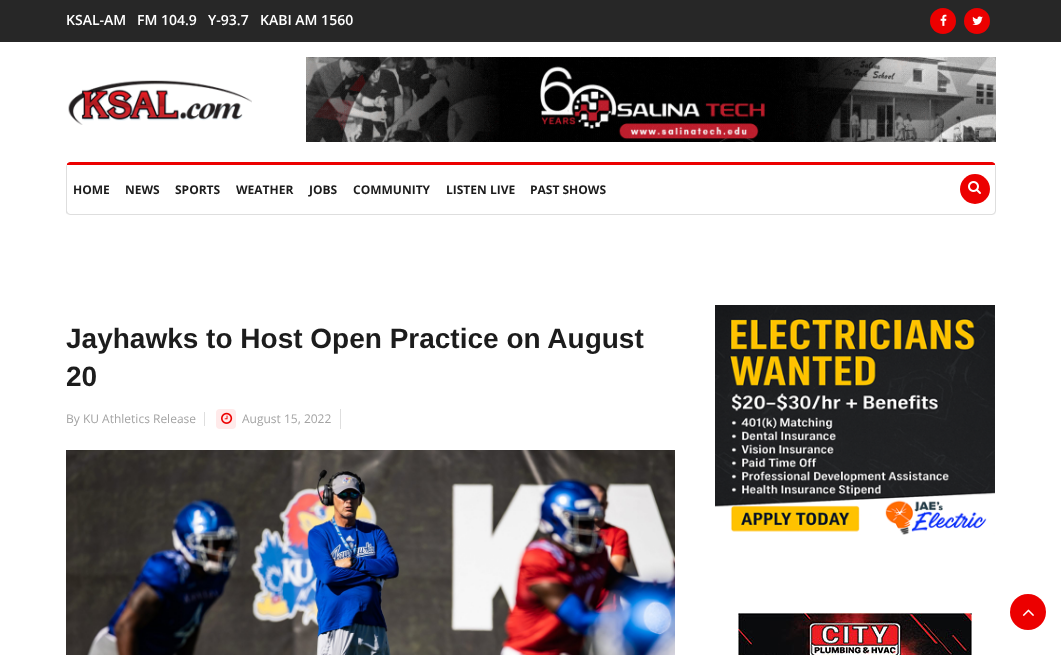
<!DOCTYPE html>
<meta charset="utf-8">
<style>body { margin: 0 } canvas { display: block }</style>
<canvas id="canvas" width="1061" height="655"></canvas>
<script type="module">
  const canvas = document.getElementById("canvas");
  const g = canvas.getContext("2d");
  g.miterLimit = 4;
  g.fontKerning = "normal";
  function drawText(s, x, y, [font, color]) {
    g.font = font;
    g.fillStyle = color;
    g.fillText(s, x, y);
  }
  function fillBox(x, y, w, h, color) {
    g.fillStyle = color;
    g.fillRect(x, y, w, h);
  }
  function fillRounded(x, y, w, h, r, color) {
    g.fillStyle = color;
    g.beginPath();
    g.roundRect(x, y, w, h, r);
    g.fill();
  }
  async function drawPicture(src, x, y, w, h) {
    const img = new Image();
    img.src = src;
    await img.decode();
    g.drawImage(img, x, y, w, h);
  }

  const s1 = ["600 14px Open Sans", "#FFFFFF"];
  const s2 = ["bold 12px Open Sans", "#1C1C1C"];
  const s3 = ["bold 28px Arimo", "#1C1C1C"];
  const s4 = ["12px Open Sans", "#A3A3A3"];

  fillBox(0, 0, 1061, 655, "#FFFFFF");
  fillBox(0, 0, 1061, 42, "#272727");
  drawText("KSAL-AM", 66, 25, s1);
  drawText("FM 104.9", 137, 25, s1);
  drawText("Y-93.7", 208, 25, s1);
  drawText("KABI AM 1560", 260, 25, s1);
  g.fillStyle = "#EC0000";
  g.beginPath();
  g.arc(943, 21, 13, 0, Math.PI * 2);
  g.fill();
  await drawPicture("pic1.png", 940, 14, 7, 12);
  g.beginPath();
  g.arc(977, 21, 13, 0, Math.PI * 2);
  g.fill();
  await drawPicture("pic2.png", 972, 16, 11, 9);
  await drawPicture("pic3.png", 68, 80, 184, 45);
  await drawPicture("pic4.png", 306, 57, 690, 85);
  g.beginPath();
  g.moveTo(70, 162);
  g.bezierCurveTo(69, 162, 67, 163, 67, 164);
  g.lineTo(67, 165);
  g.lineTo(70, 165);
  g.lineTo(992, 165);
  g.lineTo(995, 165);
  g.lineTo(995, 164);
  g.bezierCurveTo(995, 163, 993, 162, 992, 162);
  g.closePath();
  g.fill();
  g.fillStyle = "#DEDEDE";
  g.beginPath();
  g.moveTo(996, 211);
  g.lineTo(996, 166);
  g.lineTo(995, 164);
  g.lineTo(995, 165);
  g.lineTo(995, 211);
  g.lineTo(994, 213);
  g.lineTo(995, 214);
  g.closePath();
  g.fill();
  g.beginPath();
  g.moveTo(70, 215);
  g.lineTo(992, 215);
  g.lineTo(995, 214);
  g.lineTo(994, 213);
  g.lineTo(992, 214);
  g.lineTo(70, 214);
  g.lineTo(68, 213);
  g.lineTo(67, 214);
  g.closePath();
  g.fill();
  g.beginPath();
  g.moveTo(66, 166);
  g.lineTo(66, 211);
  g.bezierCurveTo(66, 212, 66, 213, 67, 214);
  g.lineTo(68, 213);
  g.lineTo(67, 211);
  g.lineTo(67, 165);
  g.lineTo(67, 164);
  g.closePath();
  g.fill();
  drawText("HOME", 73, 194, s2);
  drawText("NEWS", 125, 194, s2);
  drawText("SPORTS", 175, 194, s2);
  drawText("WEATHER", 236, 194, s2);
  drawText("JOBS", 309, 194, s2);
  drawText("COMMUNITY", 353, 194, s2);
  drawText("LISTEN LIVE", 446, 194, s2);
  drawText("PAST SHOWS", 530, 194, s2);
  g.fillStyle = "#EC0000";
  g.beginPath();
  g.arc(975, 189, 15, 0, Math.PI * 2);
  g.fill();
  await drawPicture("pic5.png", 968, 181, 13, 13);
  drawText("Jayhawks to Host Open Practice on August", 66, 348, s3);
  drawText("20", 66, 386, s3);
  fillBox(204, 412, 1, 14, "#DEDEDE");
  drawText("By KU Athletics Release", 66, 423, s4);
  fillBox(340, 409, 1, 20, "#DEDEDE");
  fillRounded(216, 409, 20, 20, 4, "#FFEAEA");
  await drawPicture("pic6.png", 221, 412, 12, 12);
  drawText("August 15, 2022", 242, 423, s4);
  await drawPicture("pic7.png", 66, 450, 609, 205);
  await drawPicture("pic8.png", 715, 305, 280, 230);
  await drawPicture("pic9.png", 738, 613, 234, 42);
  g.fillStyle = "#EC0000";
  g.beginPath();
  g.arc(1028, 612, 18, 0, Math.PI * 2);
  g.fill();
  await drawPicture("pic10.png", 1022, 609, 12, 7);
</script>
